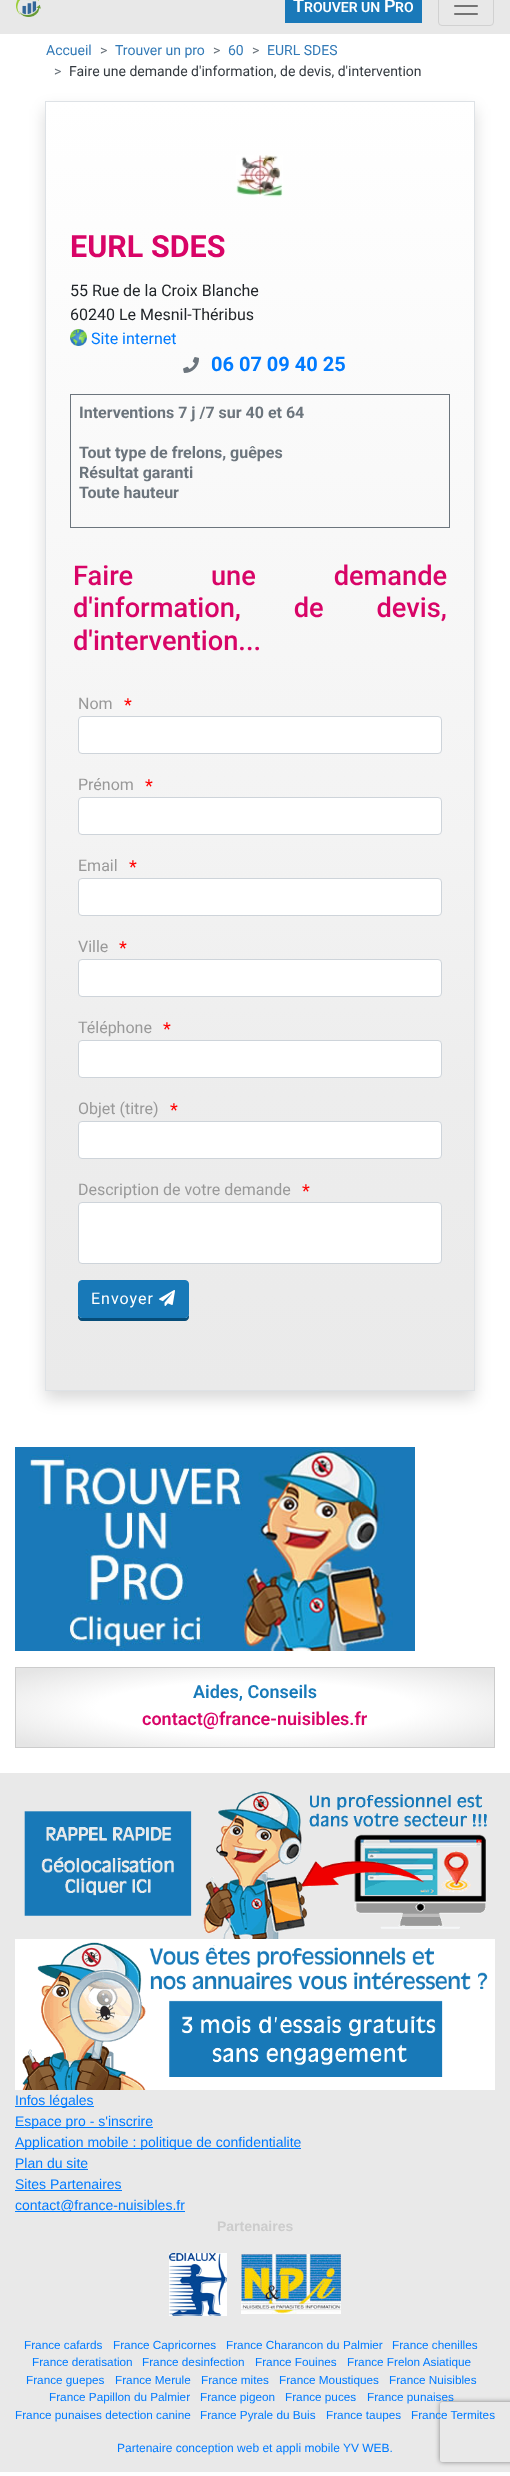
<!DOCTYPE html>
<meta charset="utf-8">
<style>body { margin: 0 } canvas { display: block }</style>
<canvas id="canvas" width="510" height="2476"></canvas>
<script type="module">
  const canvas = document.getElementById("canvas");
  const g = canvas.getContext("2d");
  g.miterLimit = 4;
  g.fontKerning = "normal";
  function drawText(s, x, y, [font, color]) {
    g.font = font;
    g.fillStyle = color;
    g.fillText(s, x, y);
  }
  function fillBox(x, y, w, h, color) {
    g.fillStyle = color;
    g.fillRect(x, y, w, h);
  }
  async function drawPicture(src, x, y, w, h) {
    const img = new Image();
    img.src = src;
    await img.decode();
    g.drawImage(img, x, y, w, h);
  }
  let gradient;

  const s1 = ["600 18px Roboto", "#FFFFFF"];
  const s2 = ["600 14px Roboto", "#FFFFFF"];
  const s3 = ["14px Roboto", "#337AB7"];
  const s4 = ["14px Roboto", "#6C757D"];
  const s5 = ["14px Roboto", "#343A40"];
  const s6 = ["bold 30.5px Roboto", "#D80467"];
  const s7 = ["16px Roboto", "#212529"];
  const s8 = ["16px Roboto", "#007BFF"];
  const s9 = ["bold 20px Roboto", "#007BFF"];
  const s10 = ["bold 16px Roboto", "#6C757D"];
  const s11 = ["500 27.25px Roboto", "#D80467"];
  const s12 = ["16px Roboto", "#999999"];
  const s13 = ["18px Roboto", "#FF0000"];
  const s14 = ["16px Roboto", "#FFFFFF"];
  const s15 = ["600 18px Roboto", "#187AB9"];
  const s16 = ["600 18px Roboto", "#D80467"];
  const s17 = ["14px Liberation Sans", "#007BFF"];
  const s18 = ["bold 14px Liberation Sans", "#CCCCCC"];
  const s19 = ["11.75px Liberation Sans", "#007BFF"];
  const s20 = ["12px Liberation Sans", "#007BFF"];

  fillBox(0, 0, 510, 2476, "#FFFFFF");
  fillBox(0, 0, 510, 34, "#E8E8E8");
  await drawPicture("pic1.png", 16, 0, 25, 17);
  fillBox(285, 0, 137, 23, "#1A79B9");
  drawText("T", 293, 12, s1);
  drawText("ROUVER UN", 304, 12, s2);
  drawText("P", 384, 12, s1);
  drawText("RO", 395, 12, s2);
  g.beginPath();
  g.roundRect(438.5, -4.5, 55, 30, 3.5);
  g.strokeStyle = "#D1D1D1";
  g.stroke();
  await drawPicture("pic2.png", 454, 5, 24, 10);
  drawText("Accueil", 46, 55, s3);
  drawText(">", 100, 55, s4);
  drawText("Trouver un pro", 115, 55, s3);
  drawText(">", 213, 55, s4);
  drawText("60", 228, 55, s3);
  drawText(">", 252, 55, s4);
  drawText("EURL SDES", 267, 55, s3);
  drawText(">", 54, 76, s4);
  drawText("Faire une demande d'information, de devis, d'intervention", 69, 76, s5);
  g.fillStyle = "rgba(0, 0, 0, 0.15)";
  g.filter = "blur(8px)";
  g.beginPath();
  g.rect(45, 109, 430, 1290);
  g.fill();
  g.filter = "none";
  gradient = g.createLinearGradient(260, 102, 260, 1390);
  gradient.addColorStop(0, "#FFFFFF");
  gradient.addColorStop(0.57, "#F3F3F3");
  gradient.addColorStop(0.77, "#EDEDED");
  gradient.addColorStop(1, "#EAEAEA");
  g.fillStyle = gradient;
  g.fillRect(46, 102, 428, 1288);
  g.strokeStyle = "#DEE2E6";
  g.strokeRect(45.5, 101.5, 429, 1289);
  await drawPicture("pic3.png", 236, 155, 47, 42);
  drawText("EURL SDES", 70, 257, s6);
  drawText("55 Rue de la Croix Blanche", 70, 296, s7);
  drawText("60240 Le Mesnil-Théribus", 70, 320, s7);
  await drawPicture("pic4.png", 70, 329, 17, 17);
  drawText("Site internet", 91, 344, s8);
  await drawPicture("pic5.png", 183, 357, 16, 16);
  drawText("06 07 09 40 25", 211, 371, s9);
  g.strokeStyle = "#6C757D";
  g.strokeRect(70.5, 394.5, 379, 133);
  drawText("Interventions 7 j /7 sur 40 et 64", 79, 418, s10);
  drawText("Tout type de frelons, guêpes", 79, 458, s10);
  drawText("Résultat garanti", 79, 478, s10);
  drawText("Toute hauteur", 79, 498, s10);
  g.wordSpacing = "71px";
  drawText("Faire une demande", 73, 585, s11);
  g.wordSpacing = "46px";
  drawText("d'information, de devis,", 73, 617, s11);
  g.wordSpacing = "0px";
  drawText("d'intervention...", 73, 650, s11);
  drawText("Nom", 78, 709, s12);
  drawText("*", 124, 711, s13);
  g.fillStyle = "#FFFFFF";
  g.beginPath();
  g.roundRect(78.5, 716.5, 363, 37, 3.5);
  g.fill();
  g.strokeStyle = "#CED4DA";
  g.stroke();
  drawText("Prénom", 78, 790, s12);
  drawText("*", 145, 792, s13);
  g.fillStyle = "#FFFFFF";
  g.beginPath();
  g.roundRect(78.5, 797.5, 363, 37, 3.5);
  g.fill();
  g.stroke();
  drawText("Email", 78, 871, s12);
  drawText("*", 129, 873, s13);
  g.fillStyle = "#FFFFFF";
  g.beginPath();
  g.roundRect(78.5, 878.5, 363, 37, 3.5);
  g.fill();
  g.stroke();
  drawText("Ville", 78, 952, s12);
  drawText("*", 119, 954, s13);
  g.fillStyle = "#FFFFFF";
  g.beginPath();
  g.roundRect(78.5, 959.5, 363, 37, 3.5);
  g.fill();
  g.stroke();
  drawText("Téléphone", 78, 1033, s12);
  drawText("*", 163, 1035, s13);
  g.fillStyle = "#FFFFFF";
  g.beginPath();
  g.roundRect(78.5, 1040.5, 363, 37, 3.5);
  g.fill();
  g.stroke();
  drawText("Objet (titre)", 78, 1114, s12);
  drawText("*", 170, 1116, s13);
  g.fillStyle = "#FFFFFF";
  g.beginPath();
  g.roundRect(78.5, 1121.5, 363, 37, 3.5);
  g.fill();
  g.stroke();
  drawText("Description de votre demande", 78, 1195, s12);
  drawText("*", 302, 1197, s13);
  g.fillStyle = "#FFFFFF";
  g.beginPath();
  g.roundRect(78.5, 1202.5, 363, 61, 3.5);
  g.fill();
  g.stroke();
  g.fillStyle = "#074D79";
  g.beginPath();
  g.moveTo(78, 1314);
  g.lineTo(78, 1317);
  g.bezierCurveTo(78, 1319, 80, 1321, 82, 1321);
  g.lineTo(185, 1321);
  g.bezierCurveTo(187, 1321, 189, 1319, 189, 1317);
  g.lineTo(189, 1314);
  g.bezierCurveTo(189, 1316, 187, 1318, 185, 1318);
  g.lineTo(82, 1318);
  g.bezierCurveTo(80, 1318, 78, 1316, 78, 1314);
  g.closePath();
  g.fill();
  g.fillStyle = "#1879B8";
  g.beginPath();
  g.roundRect(78.5, 1280.5, 110, 37, 3.5);
  g.fill();
  g.strokeStyle = "#1879B8";
  g.stroke();
  g.letterSpacing = "1px";
  drawText("Envoyer", 91, 1304, s14);
  await drawPicture("pic6.png", 159, 1290, 16, 16);
  fillBox(0, 1773, 510, 699, "#E9E9E9");
  g.save();
  g.beginPath();
  g.moveTo(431, 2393);
  g.lineTo(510, 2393);
  g.lineTo(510, 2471);
  g.lineTo(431, 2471);
  g.closePath();
  g.moveTo(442, 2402);
  g.lineTo(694, 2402);
  g.bezierCurveTo(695, 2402, 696, 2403, 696, 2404);
  g.lineTo(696, 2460);
  g.bezierCurveTo(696, 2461, 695, 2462, 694, 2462);
  g.lineTo(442, 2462);
  g.bezierCurveTo(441, 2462, 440, 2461, 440, 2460);
  g.lineTo(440, 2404);
  g.bezierCurveTo(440, 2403, 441, 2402, 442, 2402);
  g.closePath();
  g.clip("evenodd");
  g.fillStyle = "#808080";
  g.filter = "blur(2.5px)";
  g.beginPath();
  g.roundRect(440, 2402, 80, 60, 2);
  g.fill();
  g.filter = "none";
  g.restore();
  await drawPicture("pic7.png", 15, 1447, 400, 204);
  gradient = g.createRadialGradient(255, 10309, 0, 255, 10309, 338);
  gradient.addColorStop(0.47, "#FFFFFF");
  gradient.addColorStop(0.93, "#E5E5E5");
  g.fillStyle = gradient;
  g.beginPath();
  g.rect(16, 1668, 478, 79);
  g.save();
  g.clip();
  g.scale(1, 56 / 338);
  g.fillRect(0, 0, 510, 14945);
  g.restore();
  g.strokeStyle = "#CCCCCC";
  g.strokeRect(15.5, 1667.5, 479, 80);
  g.letterSpacing = "0px";
  drawText("Aides, Conseils", 193, 1698, s15);
  drawText("contact@france-nuisibles.fr", 142, 1725, s16);
  await drawPicture("pic8.png", 24, 1791, 463, 148);
  await drawPicture("pic9.png", 15, 1939, 480, 151);
  fillBox(15, 2106, 79, 1, "#007BFF");
  drawText("Infos légales", 15, 2105, s17);
  fillBox(15, 2127, 138, 1, "#007BFF");
  drawText("Espace pro - s'inscrire", 15, 2126, s17);
  fillBox(15, 2148, 286, 1, "#007BFF");
  drawText("Application mobile : politique de confidentialite", 15, 2147, s17);
  drawText("Plan du site", 15, 2168, s17);
  fillBox(15, 2169, 73, 1, "#007BFF");
  drawText("Sites Partenaires", 15, 2189, s17);
  fillBox(15, 2190, 107, 1, "#007BFF");
  fillBox(15, 2211, 170, 1, "#007BFF");
  drawText("contact@france-nuisibles.fr", 15, 2210, s17);
  drawText("Partenaires", 217, 2231, s18);
  await drawPicture("pic10.png", 169, 2253, 58, 63);
  await drawPicture("pic11.png", 241, 2254, 100, 60);
  drawText("France cafards", 24, 2349, s19);
  drawText("France Capricornes", 113, 2349, s19);
  drawText("France Charancon du Palmier", 226, 2349, s19);
  drawText("France chenilles", 392, 2349, s19);
  drawText("France deratisation", 32, 2366, s19);
  drawText("France desinfection", 142, 2366, s19);
  drawText("France Fouines", 255, 2366, s19);
  drawText("France Frelon Asiatique", 347, 2366, s19);
  drawText("France guepes", 26, 2384, s19);
  drawText("France Merule", 115, 2384, s19);
  drawText("France mites", 201, 2384, s19);
  drawText("France Moustiques", 279, 2384, s19);
  drawText("France Nuisibles", 389, 2384, s19);
  drawText("France Papillon du Palmier", 49, 2401, s19);
  drawText("France pigeon", 200, 2401, s19);
  drawText("France puces", 285, 2401, s19);
  drawText("France punaises", 367, 2401, s19);
  drawText("France punaises detection canine", 15, 2419, s19);
  drawText("France Pyrale du Buis", 200, 2419, s19);
  drawText("France taupes", 326, 2419, s19);
  drawText("France Termites", 411, 2419, s19);
  drawText("Partenaire conception web et appli mobile YV WEB.", 117, 2452, s20);
</script>
